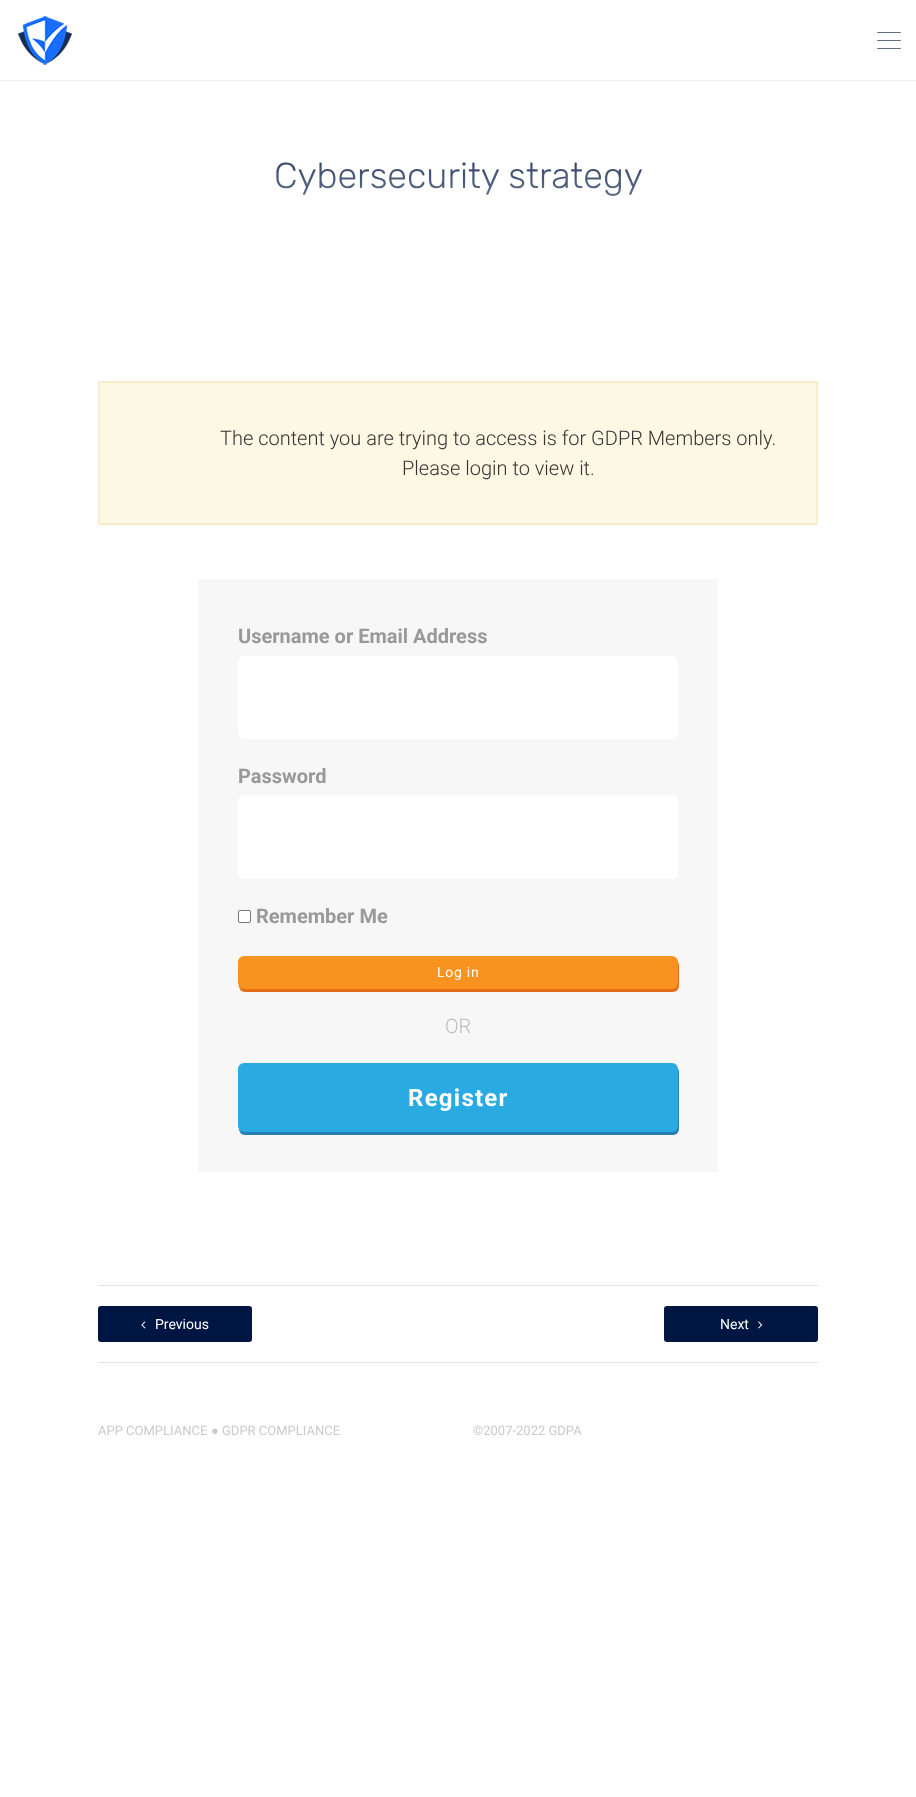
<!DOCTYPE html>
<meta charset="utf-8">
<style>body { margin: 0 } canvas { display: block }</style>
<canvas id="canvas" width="916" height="1797"></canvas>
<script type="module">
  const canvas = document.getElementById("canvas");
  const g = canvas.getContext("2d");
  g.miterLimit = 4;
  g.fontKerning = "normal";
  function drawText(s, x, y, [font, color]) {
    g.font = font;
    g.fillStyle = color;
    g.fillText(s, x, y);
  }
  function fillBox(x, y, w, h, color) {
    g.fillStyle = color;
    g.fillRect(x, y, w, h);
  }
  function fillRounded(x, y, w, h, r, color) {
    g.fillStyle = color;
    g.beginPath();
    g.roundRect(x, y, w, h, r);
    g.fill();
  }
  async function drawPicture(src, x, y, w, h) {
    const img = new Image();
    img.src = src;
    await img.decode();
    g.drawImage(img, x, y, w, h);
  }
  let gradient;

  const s1 = ["300 36px Rubik", "#001642"];
  const s2 = ["300 20px Roboto", "#333333"];
  const s3 = ["bold 20px Roboto", "#999999"];
  const s4 = ["14px Roboto", "#FFFFFF"];
  const s5 = ["300 20px Roboto", "#BBBBBB"];
  const s6 = ["bold 24px Roboto", "#FFFFFF"];
  const s7 = ["13px Roboto", "#CACACA"];
  const s8 = ["13px Liberation Sans", "#CACACA"];

  fillBox(0, 0, 916, 1797, "#FFFFFF");
  fillBox(0, 80, 916, 1, "#F0F0F0");
  await drawPicture("pic1.png", 18, 16, 54, 49);
  fillRounded(877, 32, 24, 1, 0.5, "#637282");
  fillRounded(877, 40, 24, 1, 0.5, "#637282");
  fillRounded(877, 48, 24, 1, 0.5, "#637282");
  drawText("Cybersecurity strategy", 274, 188, s1);
  gradient = g.createLinearGradient(458, 321, 458, 121);
  gradient.addColorStop(0, "#FFFFFF");
  gradient.addColorStop(1, "rgba(255, 255, 255, 0)");
  g.fillStyle = gradient;
  g.fillRect(275, 162, 367, 34);
  g.fillStyle = "#FCF8E3";
  g.beginPath();
  g.rect(99, 382, 718, 142);
  g.fill();
  g.strokeStyle = "#FAEBCC";
  g.lineWidth = 2;
  g.stroke();
  drawText("The content you are trying to access is for GDPR Members only.", 220, 445, s2);
  drawText("Please login to view it.", 402, 475, s2);
  fillBox(198, 579, 520, 593, "#F7F7F7");
  drawText("Username or Email Address", 238, 643, s3);
  fillRounded(238, 656, 440, 83, 6, "#FFFFFF");
  drawText("Password", 238, 783, s3);
  fillRounded(238, 795, 440, 84, 6, "#FFFFFF");
  g.beginPath();
  g.roundRect(238.5, 910.5, 12, 12, 1.5);
  g.fill();
  g.strokeStyle = "#767676";
  g.lineWidth = 1;
  g.stroke();
  drawText("Remember Me", 256, 923, s3);
  g.fillStyle = "#E46D19";
  g.filter = "blur(0.5px)";
  g.beginPath();
  g.roundRect(239, 959, 440, 33, 6);
  g.fill();
  g.filter = "none";
  fillRounded(238, 956, 440, 33, 6, "#F7931E");
  g.letterSpacing = "0.75px";
  drawText("Log in", 437, 977, s4);
  g.letterSpacing = "0px";
  drawText("OR", 445, 1033, s5);
  g.fillStyle = "#287EB1";
  g.filter = "blur(0.5px)";
  g.beginPath();
  g.roundRect(239, 1066, 440, 69, 6);
  g.fill();
  g.filter = "none";
  fillRounded(238, 1063, 440, 69, 6, "#29ABE2");
  g.letterSpacing = "1.25px";
  drawText("Register", 408, 1106, s6);
  fillBox(98, 1285, 720, 1, "#E2E2E2");
  fillBox(98, 1362, 720, 1, "#E2E2E2");
  fillRounded(98, 1306, 154, 36, 3, "#001642");
  await drawPicture("pic2.png", 141, 1321, 5, 8);
  g.letterSpacing = "0px";
  drawText("Previous", 155, 1329, s4);
  fillRounded(664, 1306, 154, 36, 3, "#001642");
  drawText("Next", 720, 1329, s4);
  await drawPicture("pic3.png", 758, 1321, 5, 8);
  drawText("APP COMPLIANCE", 98, 1435, s7);
  drawText("●", 211, 1435, s8);
  drawText("GDPR COMPLIANCE", 222, 1435, s7);
  drawText("©2007-2022 GDPA", 473, 1435, s7);
</script>
